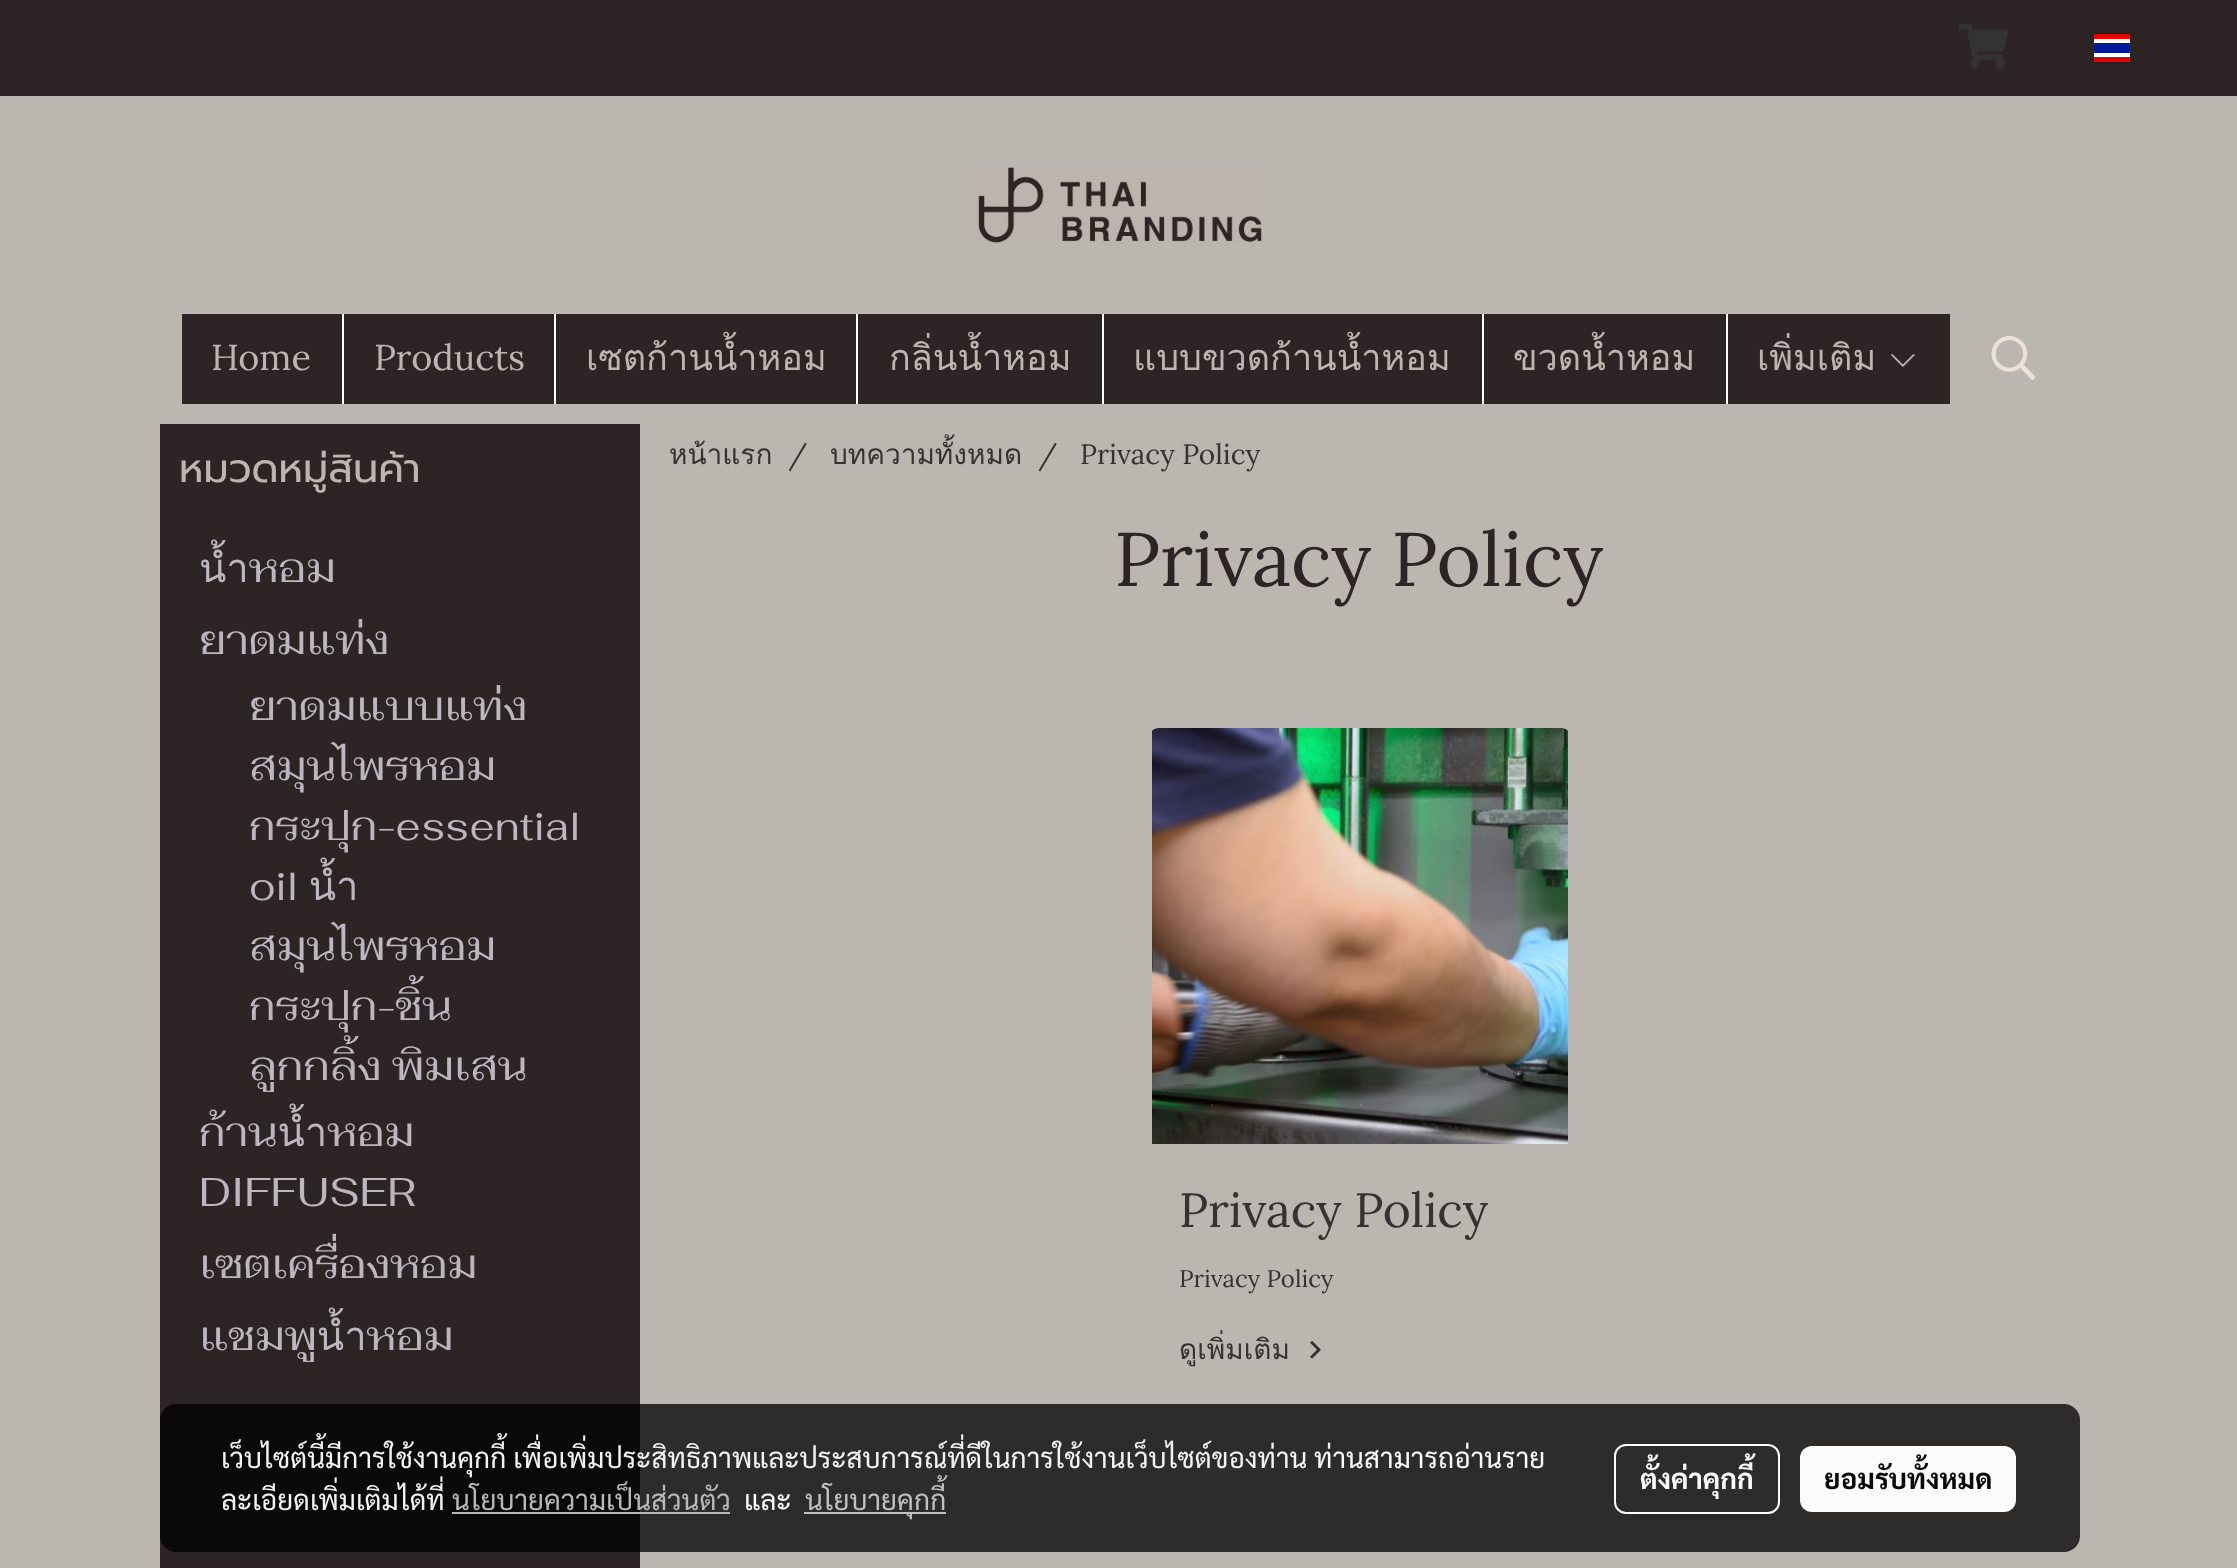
<!DOCTYPE html>
<meta charset="utf-8">
<style>body { margin: 0 } canvas { display: block }</style>
<canvas id="canvas" width="2237" height="1568"></canvas>
<script type="module">
  const canvas = document.getElementById("canvas");
  const g = canvas.getContext("2d");
  g.miterLimit = 4;
  g.fontKerning = "normal";
  function drawText(s, x, y, [font, color]) {
    g.font = font;
    g.fillStyle = color;
    g.fillText(s, x, y);
  }
  function fillBox(x, y, w, h, color) {
    g.fillStyle = color;
    g.fillRect(x, y, w, h);
  }
  function fillRounded(x, y, w, h, r, color) {
    g.fillStyle = color;
    g.beginPath();
    g.roundRect(x, y, w, h, r);
    g.fill();
  }
  async function drawPicture(src, x, y, w, h) {
    const img = new Image();
    img.src = src;
    await img.decode();
    g.drawImage(img, x, y, w, h);
  }

  const s1 = ["36px Lora", "#BBB6B0"];
  const s2 = ["36px Loma", "#BBB6B0"];
  const s3 = ["40px Prompt", "#BBB6B0"];
  const s4 = ["40px Fahkwang", "#BBB6BF"];
  const s5 = ["28px Loma", "#333333"];
  const s6 = ["28px Lora", "#333333"];
  const s7 = ["76px Lora", "#2D2525"];
  const s8 = ["48px Lora", "#333333"];
  const s9 = ["24px Lora", "#333333"];
  const s10 = ["28px Sarabun", "#F4F4F4"];
  const s11 = ["28px Sarabun", "#FCFBFB"];
  const s12 = ["28px Sarabun", "#B9B9B9"];
  const s13 = ["28px Sarabun", "#C2C1C1"];
  const s14 = ["bold 28px Sarabun", "#FCFBFB"];
  const s15 = ["bold 28px Sarabun", "#090909"];

  fillBox(0, 0, 2237, 1568, "#BBB6B0");
  fillBox(0, 0, 2237, 96, "#2D2525");
  await drawPicture("pic1.png", 1959, 24, 49, 44);
  g.fillStyle = "rgba(0, 0, 0, 0.25)";
  g.filter = "blur(2px)";
  g.beginPath();
  g.rect(2094, 34, 36, 28);
  g.fill();
  g.filter = "none";
  fillBox(2094, 39, 36, 18, "#FFFFFF");
  fillBox(2094, 43, 36, 10, "#001B9A");
  fillBox(2094, 34, 36, 5, "#E70000");
  fillBox(2094, 57, 36, 5, "#E70000");
  await drawPicture("pic2.png", 978, 167, 285, 77);
  fillBox(342, 314, 2, 90, "#FFFFFF");
  fillBox(182, 314, 160, 90, "#2D2525");
  drawText("Home", 211, 370, s1);
  fillBox(554, 314, 2, 90, "#FFFFFF");
  fillBox(344, 314, 210, 90, "#2D2525");
  drawText("Products", 374, 370, s1);
  fillBox(856, 314, 2, 90, "#FFFFFF");
  fillBox(556, 314, 300, 90, "#2D2525");
  drawText("เซตก้านน้ำหอม", 586, 370, s2);
  fillBox(1102, 314, 2, 90, "#FFFFFF");
  fillBox(858, 314, 244, 90, "#2D2525");
  drawText("กลิ่นน้ำหอม", 889, 370, s2);
  fillBox(1482, 314, 2, 90, "#FFFFFF");
  fillBox(1104, 314, 378, 90, "#2D2525");
  drawText("แบบขวดก้านน้ำหอม", 1133, 370, s2);
  fillBox(1726, 314, 2, 90, "#FFFFFF");
  fillBox(1484, 314, 242, 90, "#2D2525");
  drawText("ขวดน้ำหอม", 1513, 370, s2);
  fillBox(1728, 314, 222, 90, "#2D2525");
  drawText("เพิ่มเติม", 1757, 370, s2);
  await drawPicture("pic3.png", 1891, 354, 24, 13);
  await drawPicture("pic4.png", 1991, 336, 45, 44);
  fillBox(160, 424, 480, 1144, "#2D2525");
  drawText("หมวดหมู่สินค้า", 179, 482, s3);
  drawText("น้ำหอม", 199, 582, s4);
  drawText("ยาดมแท่ง", 199, 654, s4);
  drawText("ยาดมแบบแท่ง", 249, 720, s4);
  drawText("สมุนไพรหอม", 249, 780, s4);
  drawText("กระปุก-essential", 249, 840, s4);
  drawText("oil น้ำ", 249, 900, s4);
  drawText("สมุนไพรหอม", 249, 960, s4);
  drawText("กระปุก-ชิ้น", 249, 1020, s4);
  drawText("ลูกกลิ้ง พิมเสน", 249, 1080, s4);
  drawText("ก้านน้ำหอม", 199, 1146, s4);
  drawText("DIFFUSER", 199, 1206, s4);
  drawText("เซตเครื่องหอม", 199, 1278, s4);
  drawText("แชมพูน้ำหอม", 199, 1350, s4);
  drawText("หน้าแรก", 669, 464, s5);
  drawText("/", 788, 464, s6);
  drawText("บทความทั้งหมด", 830, 464, s5);
  drawText("/", 1038, 464, s6);
  drawText("Privacy Policy", 1080, 464, s6);
  drawText("Privacy Policy", 1114, 586, s7);
  await drawPicture("pic5.png", 1152, 728, 416, 416);
  drawText("Privacy Policy", 1179, 1227, s8);
  drawText("Privacy Policy", 1179, 1287, s9);
  drawText("ดูเพิ่มเติม", 1179, 1359, s5);
  await drawPicture("pic6.png", 1310, 1341, 11, 18);
  fillRounded(160, 1404, 1920, 148, 16, "rgba(0, 0, 0, 0.76)");
  drawText("เว็บไซต์นี้มีการใช้งานคุกกี้ เพื่อเพิ่มประสิทธิภาพและประสบการณ์ที่ดีในการใช้งานเว็บไซต์ของท่าน", 221, 1468, s10);
  drawText("ท่านสามารถอ่านราย", 1314, 1468, s11);
  drawText("ละเอียดเพิ่มเติมได้ที่", 221, 1510, s10);
  drawText("นโยบายความเป็นส่วนตัว", 452, 1510, s12);
  fillBox(452, 1512, 278, 2, "rgba(194, 194, 194, 0.95)");
  drawText("และ", 744, 1510, s11);
  fillBox(804, 1512, 142, 2, "#C2C1C1");
  drawText("นโยบายคุกกี้", 805, 1510, s13);
  g.beginPath();
  g.roundRect(1615, 1445, 164, 68, 11);
  g.strokeStyle = "#FCFBFB";
  g.lineWidth = 2;
  g.stroke();
  drawText("ตั้งค่าคุกกี้", 1640, 1489, s14);
  fillRounded(1800, 1446, 216, 66, 12, "#FCFBFB");
  drawText("ยอมรับทั้งหมด", 1824, 1489, s15);
</script>
